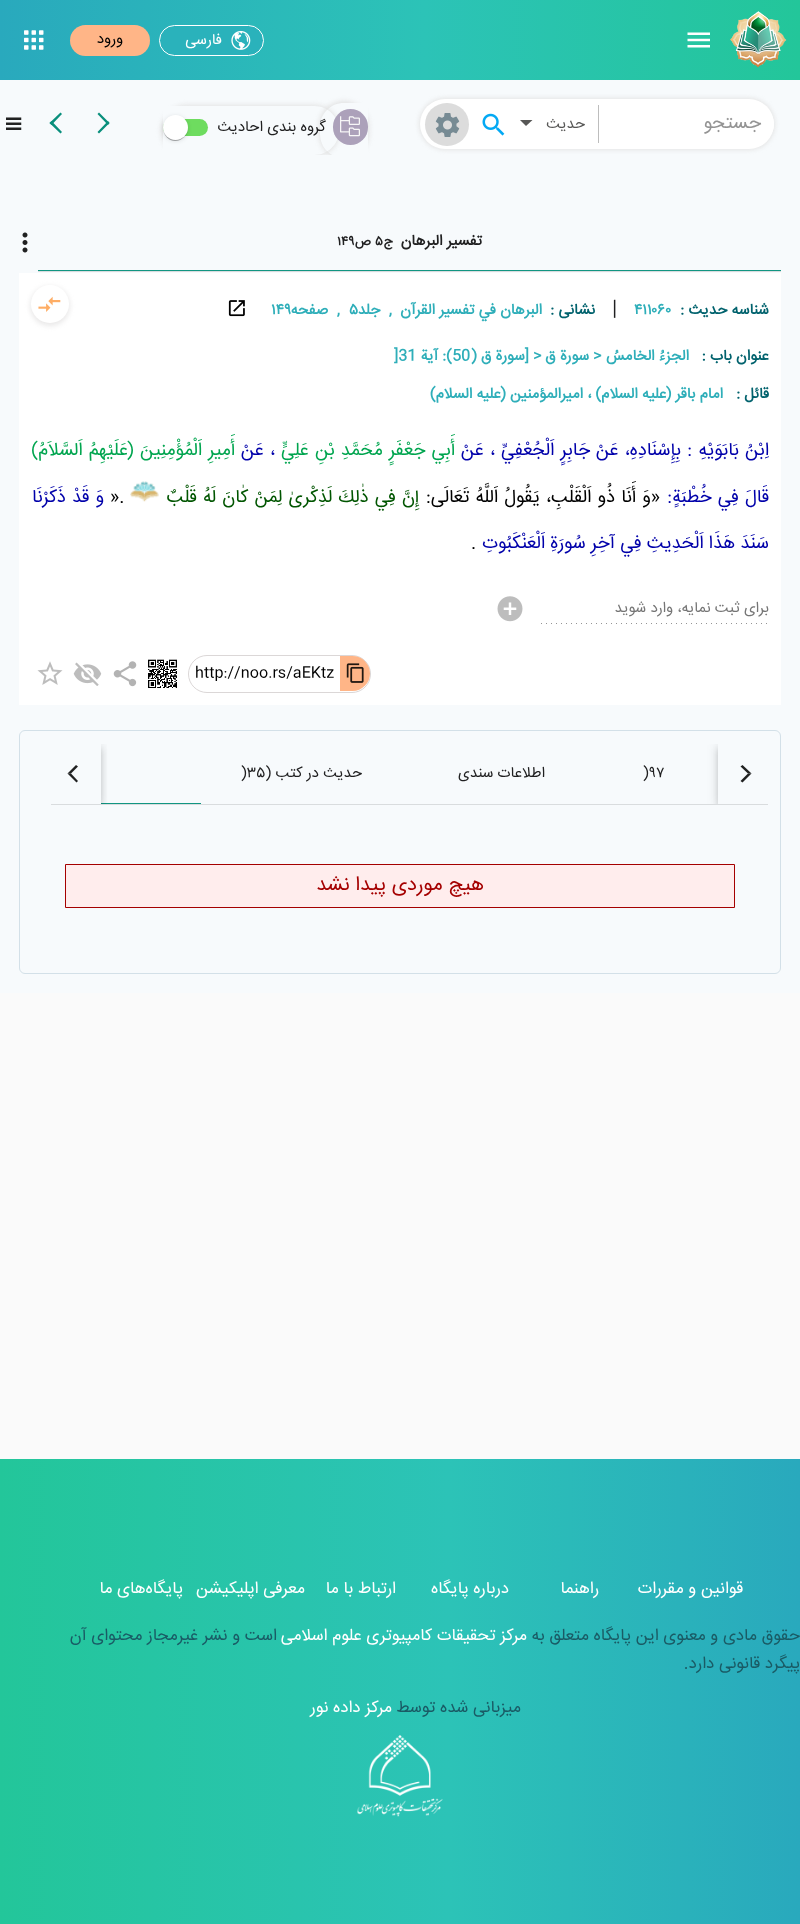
<!DOCTYPE html>
<meta charset="utf-8">
<style>body { margin: 0 } canvas { display: block }</style>
<canvas id="canvas" width="800" height="1924"></canvas>
<script type="module">
  const canvas = document.getElementById("canvas");
  const g = canvas.getContext("2d");
  g.miterLimit = 4;
  g.fontKerning = "normal";
  function drawText(s, x, y, [font, color]) {
    g.font = font;
    g.fillStyle = color;
    g.fillText(s, x, y);
  }
  function fillBox(x, y, w, h, color) {
    g.fillStyle = color;
    g.fillRect(x, y, w, h);
  }
  function fillRounded(x, y, w, h, r, color) {
    g.fillStyle = color;
    g.beginPath();
    g.roundRect(x, y, w, h, r);
    g.fill();
  }
  async function drawPicture(src, x, y, w, h) {
    const img = new Image();
    img.src = src;
    await img.decode();
    g.drawImage(img, x, y, w, h);
  }
  let gradient;

  const s1 = ["15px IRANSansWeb", "#FFFFFF"];
  const s2 = ["15px IRANSansWeb", "#000000"];
  const s3 = ["19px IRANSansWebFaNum", "#949494"];
  const s4 = ["15px IRANSansWeb", "#575756"];
  const s5 = ["15px IRANSansWeb", "#202021"];
  const s6 = ["bold 15px IRANSansWeb", "#202021"];
  const s7 = ["bold 13px IRANSansWeb", "#202021"];
  const s8 = ["bold 15px IRANSansWeb", "#01626D"];
  const s9 = ["bold 15px IRANSansWeb", "#2EAEB9"];
  const s10 = ["20px IRANSansWebFaNum", "#202021"];
  const s11 = ["18.3px IRANSansWeb", "#0000AA"];
  const s12 = ["18.3px IRANSansWeb", "#00A54F"];
  const s13 = ["18.3px IRANSansWeb", "#000000"];
  const s14 = ["18.3px IRANSansWeb", "#005500"];
  const s15 = ["15px IRANSansWeb", "#757575"];
  const s16 = ["20px IRANSansWeb", "#A50000"];
  const s17 = ["16.7px IRANSansWeb", "#FFFFFF"];
  const s18 = ["16.7px IRANSansWeb", "#1A5B65"];

  fillBox(0, 0, 800, 1924, "#FFFFFF");
  gradient = g.createLinearGradient(0, 40, 800, 40);
  gradient.addColorStop(0, "#29A9BD");
  gradient.addColorStop(0.53, "#2CC3B7");
  gradient.addColorStop(1, "#23C69A");
  g.fillStyle = gradient;
  g.fillRect(0, 0, 800, 80);
  await drawPicture("pic1.png", 730, 11, 57, 57);
  await drawPicture("pic2.png", 687, 32, 23, 16);
  g.fillStyle = "#2AB2BB";
  g.beginPath();
  g.roundRect(159.5, 25.5, 104, 30, 15);
  g.fill();
  g.strokeStyle = "#FFFFFF";
  g.stroke();
  await drawPicture("pic3.png", 231, 30, 20, 20);
  g.direction = "rtl";
  drawText("فارسی", 222, 44, s1);
  fillRounded(70, 25, 80, 31, 15.5, "#FFB587");
  drawText("ورود", 123, 43, s2);
  await drawPicture("pic4.png", 24, 30, 20, 20);
  fillBox(0, 993, 800, 466, "#FAFAFA");
  fillBox(0, 80, 800, 913, "#F7FAFC");
  g.fillStyle = "#E4E4E4";
  g.filter = "blur(2px)";
  g.beginPath();
  g.roundRect(419, 98, 356, 52, 26);
  g.fill();
  g.filter = "none";
  fillRounded(420, 99, 354, 50, 25, "#FFFFFF");
  g.beginPath();
  g.roundRect(599, 105, 175, 38, [0, 19, 19, 0]);
  g.fill();
  drawText("جستجو", 761, 128, s3);
  fillBox(598, 105, 1, 38, "#BDBDBD");
  drawText("حدیث", 585, 128, s4);
  g.beginPath();
  g.moveTo(520, 120);
  g.lineTo(532.5, 120);
  g.lineTo(526, 126);
  g.closePath();
  g.fill();
  await drawPicture("pic5.png", 482, 113, 23, 23);
  fillRounded(425, 103, 44, 43, 21.5, "#DCDCDC");
  await drawPicture("pic6.png", 435, 113, 25, 24);
  g.fillStyle = "#098F7C";
  g.beginPath();
  g.moveTo(99, 112.5);
  g.lineTo(109.5, 123);
  g.lineTo(108, 125);
  g.lineTo(97.5, 114);
  g.closePath();
  g.fill();
  g.beginPath();
  g.moveTo(108, 121);
  g.lineTo(109.5, 123);
  g.lineTo(99, 133.5);
  g.lineTo(97.5, 132);
  g.closePath();
  g.moveTo(60.5, 133.5);
  g.lineTo(49.5, 123);
  g.lineTo(51.5, 121);
  g.lineTo(62, 132);
  g.closePath();
  g.fill();
  g.save();
  g.beginPath();
  g.rect(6, 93, 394, 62);
  g.clip();
  g.beginPath();
  g.moveTo(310, 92);
  g.lineTo(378, 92);
  g.lineTo(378, 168);
  g.lineTo(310, 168);
  g.closePath();
  g.moveTo(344, 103);
  g.lineTo(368, 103);
  g.lineTo(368, 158);
  g.lineTo(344, 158);
  g.bezierCurveTo(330.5, 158, 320, 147.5, 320, 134);
  g.lineTo(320, 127);
  g.bezierCurveTo(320, 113.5, 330.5, 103, 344, 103);
  g.closePath();
  g.clip("evenodd");
  g.fillStyle = "#E2E2E2";
  g.filter = "blur(2.5px)";
  g.beginPath();
  g.roundRect(319, 101, 50, 58, 25);
  g.fill();
  g.filter = "none";
  g.restore();
  g.save();
  g.beginPath();
  g.rect(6, 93, 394, 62);
  g.clip();
  g.beginPath();
  g.moveTo(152, 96);
  g.lineTo(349, 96);
  g.lineTo(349, 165);
  g.lineTo(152, 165);
  g.closePath();
  g.moveTo(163, 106);
  g.lineTo(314.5, 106);
  g.bezierCurveTo(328, 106, 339, 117, 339, 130.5);
  g.bezierCurveTo(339, 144, 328, 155, 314.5, 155);
  g.lineTo(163, 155);
  g.closePath();
  g.clip("evenodd");
  g.fillStyle = "#E2E2E2";
  g.filter = "blur(2.5px)";
  g.beginPath();
  g.roundRect(161, 105, 179, 51, 25.5);
  g.fill();
  g.filter = "none";
  g.restore();
  fillRounded(333, 109, 35, 36, 17.5, "#ACA1BA");
  await drawPicture("pic7.png", 340, 116, 20, 21);
  drawText("گروه بندی احادیث", 326, 131, s5);
  fillRounded(163, 119, 45, 17, 8.5, "#6EDC5F");
  g.fillStyle = "rgba(0, 0, 0, 0.12)";
  g.filter = "blur(2px)";
  g.beginPath();
  g.roundRect(163, 116, 25, 25, 12.5);
  g.fill();
  g.filter = "none";
  g.fillStyle = "rgba(0, 0, 0, 0.14)";
  g.filter = "blur(0.5px)";
  g.beginPath();
  g.roundRect(163, 116, 25, 25, 12.5);
  g.fill();
  g.filter = "none";
  g.fillStyle = "rgba(0, 0, 0, 0.2)";
  g.filter = "blur(0.5px)";
  g.beginPath();
  g.roundRect(164, 119, 22, 22, 11);
  g.fill();
  g.filter = "none";
  g.fillStyle = "#FFFFFF";
  g.beginPath();
  g.arc(175.5, 127.5, 12.5, 0, Math.PI * 2);
  g.fill();
  g.fillStyle = "#098F7C";
  g.beginPath();
  g.moveTo(51.5, 125);
  g.lineTo(49.5, 123);
  g.lineTo(60.5, 112.5);
  g.lineTo(62, 114);
  g.closePath();
  g.fill();
  await drawPicture("pic8.png", 6, 117, 16, 13);
  fillBox(38, 271, 743, 1, "#D9DCDE");
  drawText("تفسیر البرهان", 482, 245, s6);
  drawText("ج", 393, 245, s7);
  g.direction = "ltr";
  drawText("۵", 375, 245, s7);
  g.direction = "rtl";
  drawText("ص", 371, 245, s7);
  g.direction = "ltr";
  drawText("۱۴۹", 337, 245, s7);
  fillBox(38, 270, 743, 1, "#119682");
  fillBox(19, 273, 762, 432, "#FFFFFF");
  g.direction = "rtl";
  drawText("شناسه حدیث :", 769, 314, s8);
  g.direction = "ltr";
  drawText("۴۱۱۰۶۰", 634, 314, s9);
  drawText("|", 612, 314, s10);
  g.direction = "rtl";
  drawText("نشانی :", 595, 314, s8);
  drawText("البرهان في تفسير القرآن  ,  جلد", 542, 314, s9);
  g.direction = "ltr";
  drawText("۵", 349, 314, s9);
  g.direction = "rtl";
  drawText(",  صفحه", 340, 314, s9);
  g.direction = "ltr";
  drawText("۱۴۹", 271, 314, s9);
  await drawPicture("pic9.png", 228, 300, 17, 17);
  g.fillStyle = "#EAE9E9";
  g.filter = "blur(2.5px)";
  g.beginPath();
  g.roundRect(30, 286, 40, 40, 20);
  g.fill();
  g.filter = "none";
  g.fillStyle = "#FFFFFF";
  g.beginPath();
  g.arc(50, 304, 19, 0, Math.PI * 2);
  g.fill();
  await drawPicture("pic10.png", 38, 296, 23, 16);
  g.direction = "rtl";
  drawText("عنوان باب :", 769, 360, s8);
  drawText("الجزءُ الخامسُ", 689, 360, s9);
  g.direction = "ltr";
  drawText(">", 593, 360, s9);
  g.direction = "rtl";
  drawText("سورة ق", 589, 360, s9);
  g.direction = "ltr";
  drawText(">", 533, 360, s9);
  g.direction = "rtl";
  drawText("[سورة ق (", 529, 360, s9);
  g.direction = "ltr";
  drawText("50", 452, 360, s9);
  g.direction = "rtl";
  drawText("): آیة", 452, 360, s9);
  g.direction = "ltr";
  drawText("]31", 394, 360, s9);
  g.direction = "rtl";
  drawText("قائل :", 769, 398, s8);
  drawText("امام باقر (علیه السلام) ، امیرالمؤمنین (علیه السلام)", 723, 398, s9);
  g.wordSpacing = "1px";
  drawText("اِبْنُ بَابَوَيْهِ", 769, 455, s11);
  drawText(": بِإِسْنَادِهِ، عَنْ", 692, 455, s11);
  drawText("جَابِرٍ اَلْجُعْفِيِّ", 590, 455, s11);
  drawText("، عَنْ", 495, 455, s11);
  drawText("أَبِي جَعْفَرٍ مُحَمَّدِ بْنِ عَلِيٍّ", 455, 455, s12);
  drawText("، عَنْ", 275, 455, s11);
  drawText("أَمِيرِ اَلْمُؤْمِنِينَ (عَلَيْهِمُ اَلسَّلاَمُ)", 235, 455, s12);
  drawText("قَالَ فِي خُطْبَةٍ:", 769, 502, s11);
  drawText("«وَ أَنَا", 660, 502, s13);
  drawText("ذُو اَلْقَلْبِ، يَقُولُ اَللَّهُ تَعَالَى:", 615, 502, s13);
  drawText("إِنَّ فِي ذٰلِكَ لَذِكْرىٰ لِمَنْ كٰانَ لَهُ قَلْبٌ", 419, 502, s14);
  await drawPicture("pic11.png", 130, 481, 29, 21);
  g.wordSpacing = "0px";
  g.direction = "ltr";
  drawText("».", 110, 502, s13);
  g.wordSpacing = "1px";
  g.direction = "rtl";
  drawText("وَ قَدْ ذَكَرْنَا", 104, 502, s11);
  g.wordSpacing = "0px";
  drawText("سَنَدَ هَذَا اَلْحَدِيثِ فِي آخِرِ سُورَةِ اَلْعَنْكَبُوتِ", 769, 548, s11);
  g.direction = "ltr";
  drawText(".", 471, 548, s13);
  g.direction = "rtl";
  drawText("برای ثبت نمایه، وارد شوید", 769, 612, s15);
  await drawPicture("pic12.png", 541, 623, 226, 1);
  await drawPicture("pic13.png", 497, 596, 26, 26);
  g.beginPath();
  g.roundRect(188.5, 655.5, 182, 37, 18.5);
  g.strokeStyle = "#DBD7D7";
  g.stroke();
  g.fillStyle = "#FFB587";
  g.beginPath();
  g.roundRect(340, 656, 30, 35, [0, 17.5, 17.5, 0]);
  g.fill();
  await drawPicture("pic14.png", 346, 663, 18, 20);
  g.direction = "ltr";
  drawText("http://noo.rs/aEKtz", 195, 677, s2);
  await drawPicture("pic15.png", 148, 659, 29, 29);
  await drawPicture("pic16.png", 113, 661, 24, 26);
  await drawPicture("pic17.png", 73, 662, 29, 24);
  await drawPicture("pic18.png", 37, 661, 26, 24);
  await drawPicture("pic19.png", 22, 232, 6, 21);
  g.beginPath();
  g.roundRect(19.5, 730.5, 761, 243, 5.5);
  g.strokeStyle = "#D3E0E8";
  g.stroke();
  fillBox(51, 804, 717, 1, "#D9DCDE");
  g.save();
  g.beginPath();
  g.rect(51, 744, 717, 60);
  g.clip();
  g.beginPath();
  g.moveTo(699, 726);
  g.lineTo(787, 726);
  g.lineTo(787, 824);
  g.lineTo(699, 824);
  g.closePath();
  g.moveTo(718, 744);
  g.lineTo(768, 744);
  g.lineTo(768, 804);
  g.lineTo(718, 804);
  g.closePath();
  g.clip("evenodd");
  g.fillStyle = "rgba(0, 0, 0, 0.12)";
  g.filter = "blur(6px)";
  g.beginPath();
  g.rect(718, 745, 50, 60);
  g.fill();
  g.filter = "none";
  g.restore();
  g.save();
  g.beginPath();
  g.rect(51, 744, 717, 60);
  g.clip();
  g.beginPath();
  g.moveTo(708, 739);
  g.lineTo(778, 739);
  g.lineTo(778, 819);
  g.lineTo(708, 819);
  g.closePath();
  g.moveTo(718, 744);
  g.lineTo(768, 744);
  g.lineTo(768, 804);
  g.lineTo(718, 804);
  g.closePath();
  g.clip("evenodd");
  g.fillStyle = "rgba(0, 0, 0, 0.14)";
  g.filter = "blur(3px)";
  g.beginPath();
  g.rect(718, 749, 50, 60);
  g.fill();
  g.filter = "none";
  g.restore();
  g.fillStyle = "#202121";
  g.beginPath();
  g.moveTo(742.5, 765);
  g.lineTo(751.5, 773.5);
  g.lineTo(748, 773.5);
  g.lineTo(740.5, 766.5);
  g.closePath();
  g.fill();
  g.beginPath();
  g.moveTo(751.5, 773.5);
  g.lineTo(742.5, 782.5);
  g.lineTo(740.5, 781);
  g.lineTo(748, 773.5);
  g.closePath();
  g.fill();
  drawText(")۹۷", 643, 777, s5);
  g.direction = "rtl";
  drawText("اطلاعات سندی", 545, 777, s5);
  drawText("حدیث در کتب (", 362, 777, s5);
  g.direction = "ltr";
  drawText(")۳۵", 241, 777, s5);
  fillBox(101, 803, 100, 1, "#119682");
  g.save();
  g.beginPath();
  g.rect(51, 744, 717, 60);
  g.clip();
  g.beginPath();
  g.rect(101, 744, 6, 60);
  g.clip();
  g.fillStyle = "rgba(0, 0, 0, 0.12)";
  g.filter = "blur(6px)";
  g.beginPath();
  g.rect(51, 745, 50, 60);
  g.fill();
  g.filter = "none";
  g.restore();
  g.save();
  g.beginPath();
  g.rect(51, 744, 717, 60);
  g.clip();
  g.beginPath();
  g.moveTo(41, 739);
  g.lineTo(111, 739);
  g.lineTo(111, 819);
  g.lineTo(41, 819);
  g.closePath();
  g.moveTo(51, 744);
  g.lineTo(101, 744);
  g.lineTo(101, 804);
  g.lineTo(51, 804);
  g.closePath();
  g.clip("evenodd");
  g.fillStyle = "rgba(0, 0, 0, 0.14)";
  g.filter = "blur(3px)";
  g.beginPath();
  g.rect(51, 749, 50, 60);
  g.fill();
  g.filter = "none";
  g.restore();
  g.fillStyle = "#202121";
  g.beginPath();
  g.moveTo(76.5, 782.5);
  g.lineTo(67.5, 773.5);
  g.lineTo(71, 773.5);
  g.lineTo(78, 781);
  g.closePath();
  g.fill();
  g.fillStyle = "rgba(0, 0, 0, 0.87)";
  g.beginPath();
  g.moveTo(67.5, 773.5);
  g.lineTo(76, 765);
  g.lineTo(78, 766.5);
  g.lineTo(71, 773.5);
  g.closePath();
  g.fill();
  g.fillStyle = "#FFEDED";
  g.beginPath();
  g.rect(65.5, 864.5, 669, 43);
  g.fill();
  g.strokeStyle = "#A50000";
  g.stroke();
  g.direction = "rtl";
  drawText("هیچ موردی پیدا نشد", 484, 890, s16);
  gradient = g.createLinearGradient(800, 1692, 0, 1692);
  gradient.addColorStop(0, "#29A9BD");
  gradient.addColorStop(0.44, "#2CC3B7");
  gradient.addColorStop(1, "#23C69A");
  g.fillStyle = gradient;
  g.fillRect(0, 1459, 800, 465);
  drawText("قوانین و مقررات", 743, 1593, s17);
  drawText("راهنما", 599, 1593, s17);
  drawText("درباره پایگاه", 509, 1593, s17);
  drawText("ارتباط با ما", 396, 1593, s17);
  drawText("معرفی اپلیکیشن", 305, 1593, s17);
  drawText("پایگاه‌های ما", 183, 1593, s17);
  drawText("حقوق مادی و معنوی این پایگاه متعلق به", 800, 1640, s18);
  drawText("مرکز تحقیقات کامپیوتری علوم اسلامی", 527, 1640, s17);
  drawText("است و نشر غیرمجاز محتوای آن", 277, 1640, s18);
  drawText("پیگرد قانونی دارد.", 800, 1668, s18);
  drawText("میزبانی شده توسط", 521, 1712, s18);
  drawText("مرکز داده نور", 392, 1712, s17);
  await drawPicture("pic20.png", 357, 1735, 86, 82);
</script>
